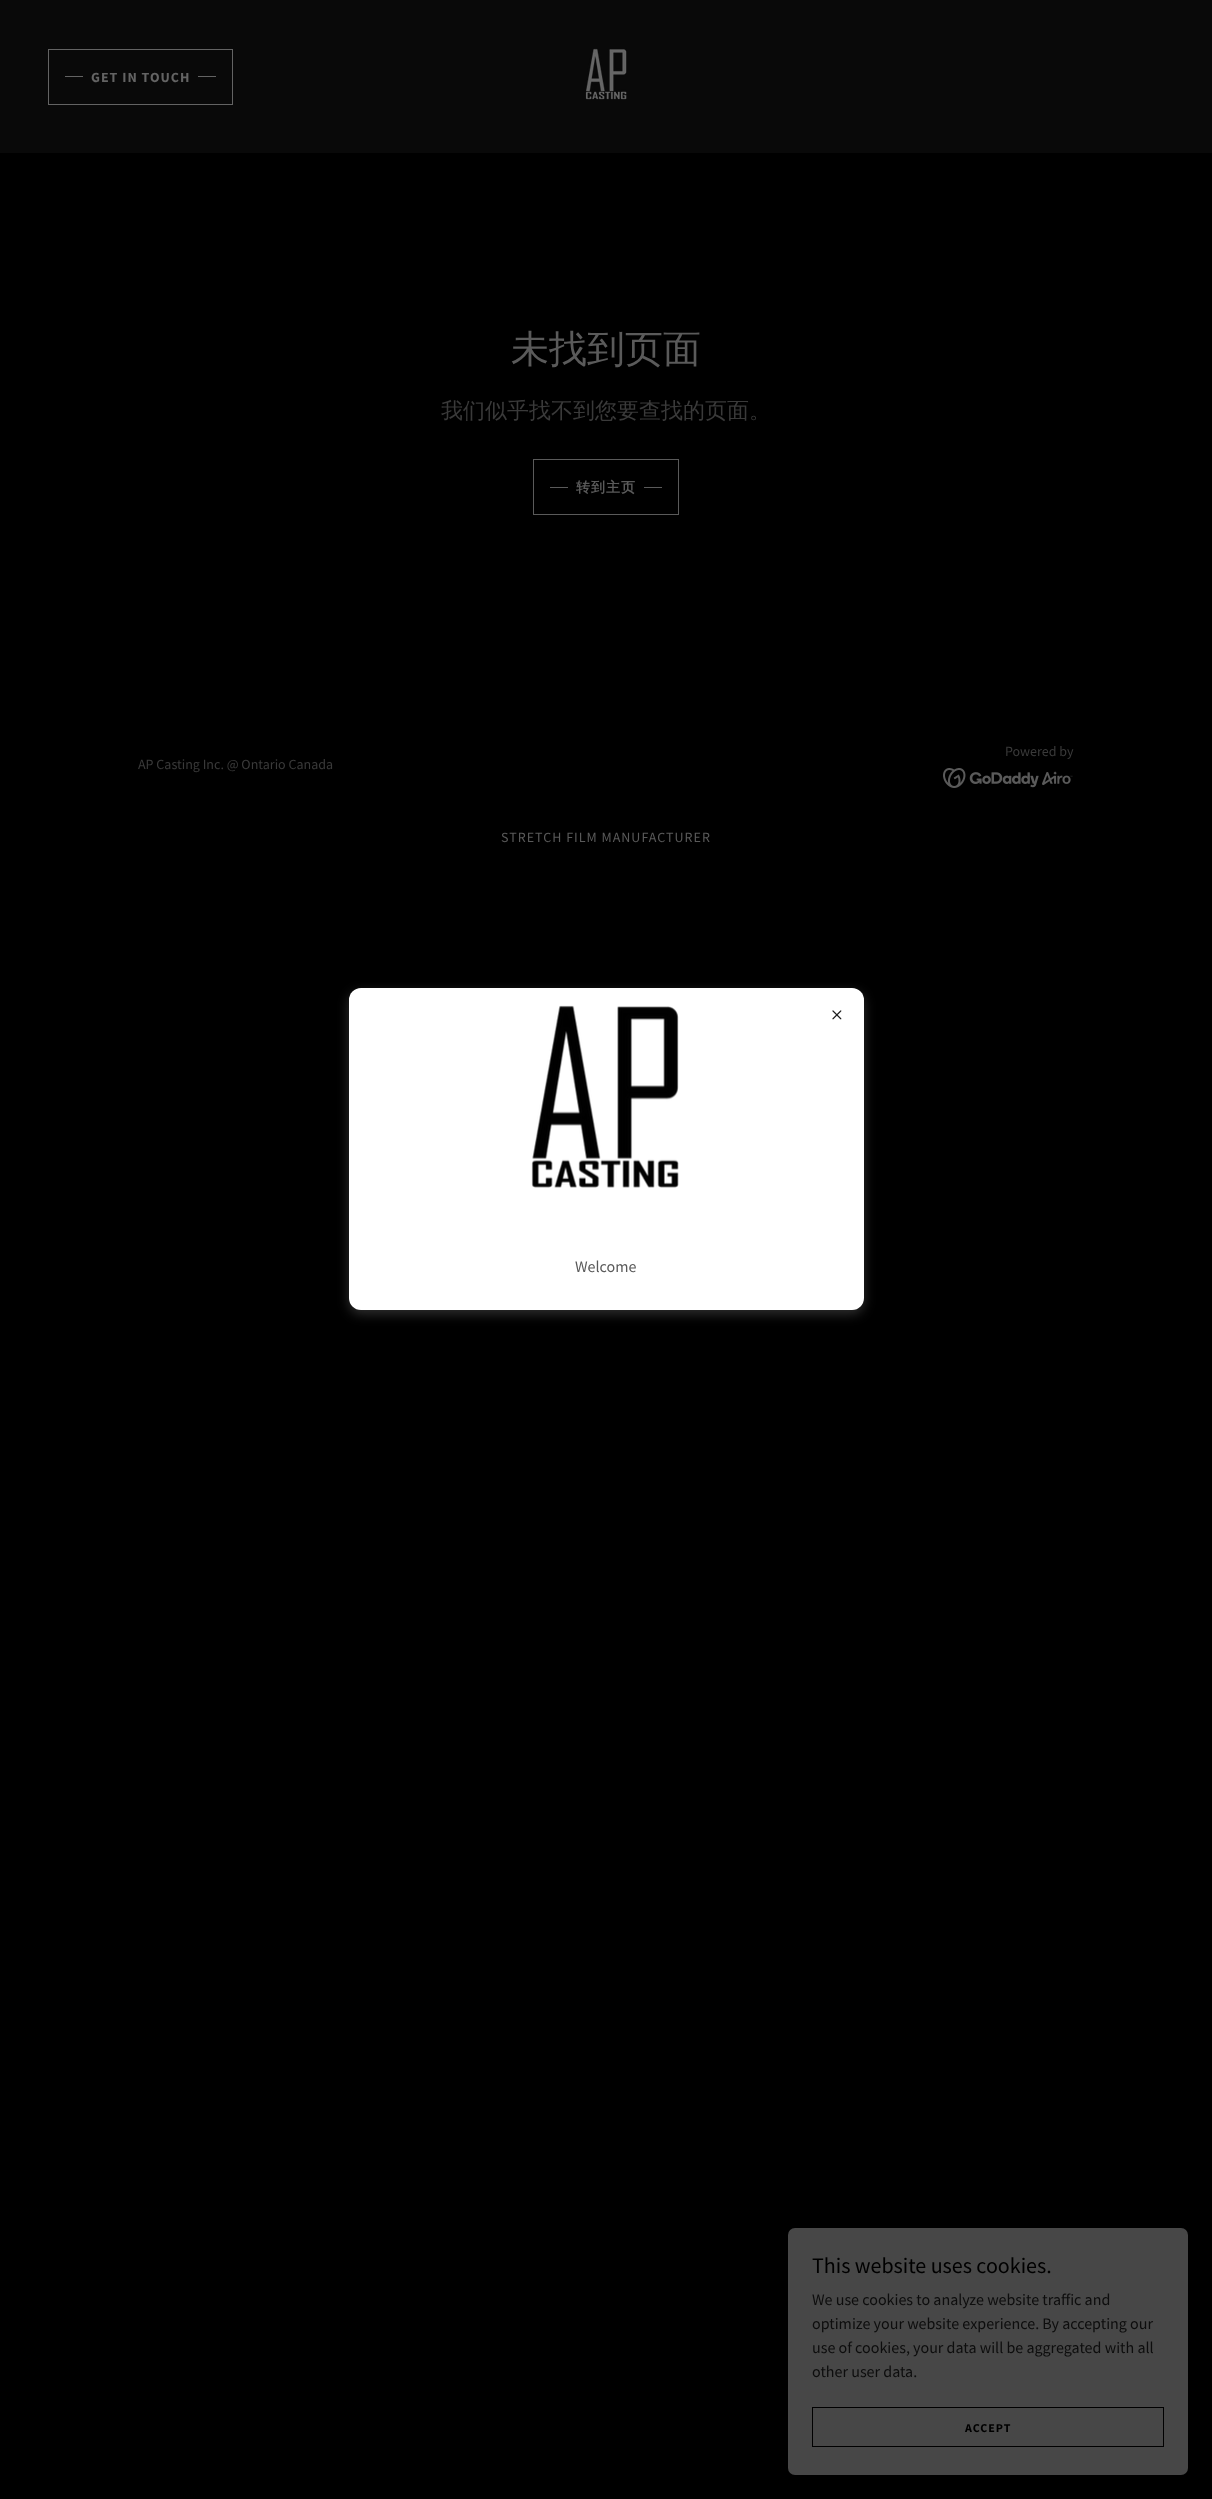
<!DOCTYPE html>
<meta charset="utf-8">
<style>body { margin: 0 } canvas { display: block }</style>
<canvas id="canvas" width="1212" height="2499"></canvas>
<script type="module">
  const canvas = document.getElementById("canvas");
  const g = canvas.getContext("2d");
  g.miterLimit = 4;
  g.fontKerning = "normal";
  function drawText(s, x, y, [font, color]) {
    g.font = font;
    g.fillStyle = color;
    g.fillText(s, x, y);
  }
  function fillBox(x, y, w, h, color) {
    g.fillStyle = color;
    g.fillRect(x, y, w, h);
  }
  function fillRounded(x, y, w, h, r, color) {
    g.fillStyle = color;
    g.beginPath();
    g.roundRect(x, y, w, h, r);
    g.fill();
  }
  async function drawPicture(src, x, y, w, h) {
    const img = new Image();
    img.src = src;
    await img.decode();
    g.drawImage(img, x, y, w, h);
  }

  const s1 = ["bold 14px Source Sans Pro", "#636363"];
  const s2 = ["500 38px WenQuanYi Zen Hei", "#5A5A5A"];
  const s3 = ["500 22px WenQuanYi Zen Hei", "#3A3A3A"];
  const s4 = ["bold 14px WenQuanYi Zen Hei", "#5A5A5A"];
  const s5 = ["14px Source Sans Pro", "#3A3A3A"];
  const s6 = ["14px Source Sans Pro", "#5A5A5A"];
  const s7 = ["16px Source Sans Pro", "#5A5A5A"];
  const s8 = ["22px Source Sans Pro", "#000000"];
  const s9 = ["16px Source Sans Pro", "#0D0D0D"];
  const s10 = ["bold 12px Source Sans Pro", "#000000"];

  fillBox(0, 0, 1212, 2499, "#000000");
  fillBox(0, 0, 1212, 153, "#090909");
  g.strokeStyle = "#636363";
  g.strokeRect(48.5, 49.5, 184, 55);
  fillBox(65, 76, 18, 1, "#636363");
  g.letterSpacing = "1px";
  drawText("GET IN TOUCH", 91, 82, s1);
  fillBox(198, 76, 18, 1, "#636363");
  await drawPicture("pic1.png", 585, 48, 42, 52);
  g.letterSpacing = "0px";
  drawText("未找到页面", 511, 362, s2);
  drawText("我们似乎找不到您要查找的页面。", 441, 418, s3);
  g.strokeStyle = "#5A5A5A";
  g.strokeRect(533.5, 459.5, 145, 55);
  fillBox(550, 487, 18, 1, "#5A5A5A");
  g.letterSpacing = "1px";
  drawText("转到主页", 576, 492, s4);
  fillBox(644, 487, 18, 1, "#5A5A5A");
  g.letterSpacing = "0px";
  drawText("Powered by", 1005, 756, s5);
  await drawPicture("pic2.png", 943, 768, 130, 20);
  drawText("AP Casting Inc. @ Ontario Canada", 138, 769, s5);
  g.letterSpacing = "1px";
  drawText("STRETCH FILM MANUFACTURER", 501, 842, s6);
  g.fillStyle = "rgba(117, 117, 117, 0.4)";
  g.filter = "blur(6px)";
  g.beginPath();
  g.roundRect(349, 992, 515, 322, 12);
  g.fill();
  g.filter = "none";
  fillRounded(349, 988, 515, 322, 12, "#FFFFFF");
  await drawPicture("pic3.png", 832, 1010, 10, 10);
  await drawPicture("pic4.png", 531, 1005, 148, 183);
  g.letterSpacing = "0px";
  drawText("Welcome", 575, 1272, s7);
  fillRounded(788, 2228, 400, 247, 7, "#474747");
  drawText("This website uses cookies.", 812, 2273, s8);
  drawText("We use cookies to analyze website traffic and", 812, 2305, s9);
  drawText("optimize your website experience. By accepting our", 812, 2329, s9);
  drawText("use of cookies, your data will be aggregated with all", 812, 2353, s9);
  drawText("other user data.", 812, 2377, s9);
  g.strokeStyle = "#000000";
  g.strokeRect(812.5, 2407.5, 351, 39);
  g.letterSpacing = "1px";
  drawText("ACCEPT", 965, 2432, s10);
</script>
